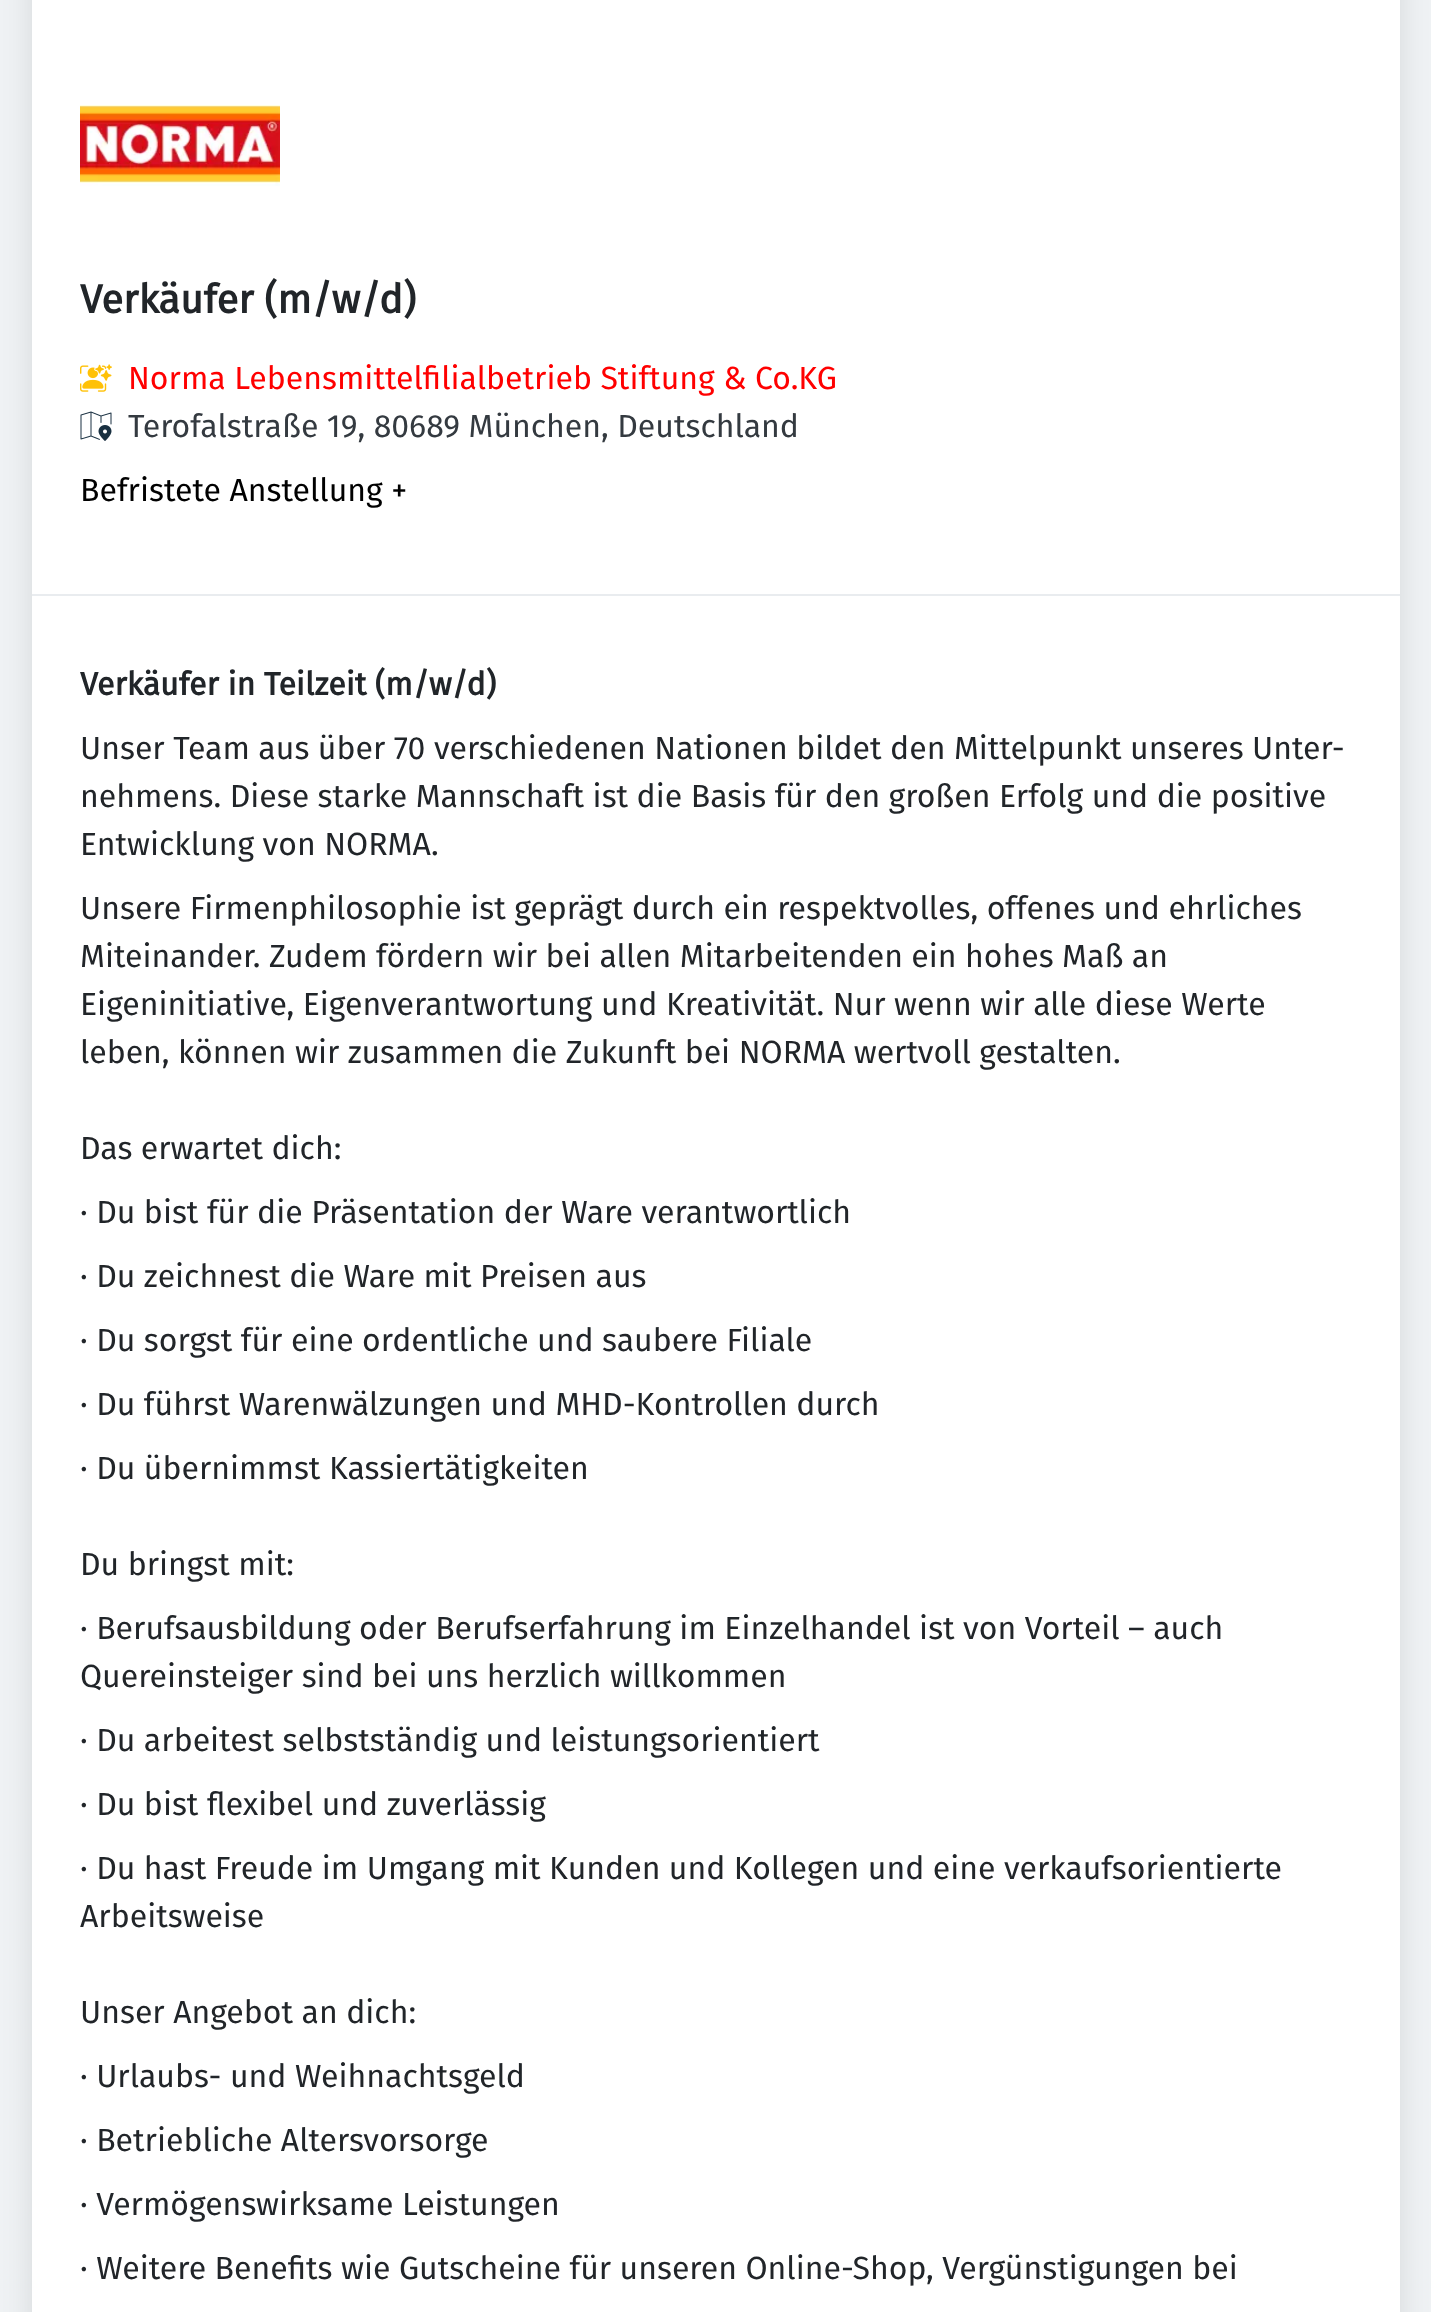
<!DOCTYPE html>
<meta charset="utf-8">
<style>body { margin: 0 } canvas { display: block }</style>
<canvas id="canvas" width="1431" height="2312"></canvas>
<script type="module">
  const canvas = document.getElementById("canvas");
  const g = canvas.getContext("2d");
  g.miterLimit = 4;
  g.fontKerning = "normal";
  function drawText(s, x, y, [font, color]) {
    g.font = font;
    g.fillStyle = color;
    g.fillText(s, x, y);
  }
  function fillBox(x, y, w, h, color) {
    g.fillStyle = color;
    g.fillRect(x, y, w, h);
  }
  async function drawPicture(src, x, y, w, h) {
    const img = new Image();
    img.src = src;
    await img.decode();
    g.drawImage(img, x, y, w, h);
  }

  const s1 = ["bold 40px Fira Sans", "#212529"];
  const s2 = ["32px Fira Sans", "#FF0000"];
  const s3 = ["32px Fira Sans", "#343A40"];
  const s4 = ["32px Fira Sans", "#000000"];
  const s5 = ["bold 32px Fira Sans", "#212529"];
  const s6 = ["32px Fira Sans", "#212529"];

  fillBox(0, 0, 1431, 2312, "#EFF2F4");
  g.fillStyle = "rgba(0, 0, 0, 0.1)";
  g.filter = "blur(15px)";
  g.beginPath();
  g.roundRect(32, -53, 1368, 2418, 8);
  g.fill();
  g.filter = "none";
  fillBox(32, 0, 1368, 2312, "#FFFFFF");
  fillBox(32, 594, 1368, 2, "#E9ECEF");
  await drawPicture("pic1.png", 80, 105, 200, 81);
  drawText("Verkäufer (m/w/d)", 80, 313, s1);
  await drawPicture("pic2.png", 80, 364, 32, 28);
  drawText("Norma Lebensmittelfilialbetrieb Stiftung & Co.KG", 128, 389, s2);
  await drawPicture("pic3.png", 80, 411, 32, 30);
  drawText("Terofalstraße 19, 80689 München, Deutschland", 128, 437, s3);
  drawText("Befristete Anstellung +", 80, 501, s4);
  drawText("Verkäufer in Teilzeit (m/w/d)", 80, 695, s5);
  drawText("Unser Team aus über 70 verschiedenen Nationen bildet den Mittelpunkt unseres Unter-", 80, 759, s6);
  drawText("nehmens. Diese starke Mannschaft ist die Basis für den großen Erfolg und die positive", 80, 807, s6);
  drawText("Entwicklung von NORMA.", 80, 855, s6);
  drawText("Unsere Firmenphilosophie ist geprägt durch ein respektvolles, offenes und ehrliches", 80, 919, s6);
  drawText("Miteinander. Zudem fördern wir bei allen Mitarbeitenden ein hohes Maß an", 80, 967, s6);
  drawText("Eigeninitiative, Eigenverantwortung und Kreativität. Nur wenn wir alle diese Werte", 80, 1015, s6);
  drawText("leben, können wir zusammen die Zukunft bei NORMA wertvoll gestalten.", 80, 1063, s6);
  drawText("Das erwartet dich:", 80, 1159, s6);
  drawText("· Du bist für die Präsentation der Ware verantwortlich", 80, 1223, s6);
  drawText("· Du zeichnest die Ware mit Preisen aus", 80, 1287, s6);
  drawText("· Du sorgst für eine ordentliche und saubere Filiale", 80, 1351, s6);
  drawText("· Du führst Warenwälzungen und MHD-Kontrollen durch", 80, 1415, s6);
  drawText("· Du übernimmst Kassiertätigkeiten", 80, 1479, s6);
  drawText("Du bringst mit:", 80, 1575, s6);
  drawText("· Berufsausbildung oder Berufserfahrung im Einzelhandel ist von Vorteil – auch", 80, 1639, s6);
  drawText("Quereinsteiger sind bei uns herzlich willkommen", 80, 1687, s6);
  drawText("· Du arbeitest selbstständig und leistungsorientiert", 80, 1751, s6);
  drawText("· Du bist flexibel und zuverlässig", 80, 1815, s6);
  drawText("· Du hast Freude im Umgang mit Kunden und Kollegen und eine verkaufsorientierte", 80, 1879, s6);
  drawText("Arbeitsweise", 80, 1927, s6);
  drawText("Unser Angebot an dich:", 80, 2023, s6);
  drawText("· Urlaubs- und Weihnachtsgeld", 80, 2087, s6);
  drawText("· Betriebliche Altersvorsorge", 80, 2151, s6);
  drawText("· Vermögenswirksame Leistungen", 80, 2215, s6);
  drawText("· Weitere Benefits wie Gutscheine für unseren Online-Shop, Vergünstigungen bei", 80, 2279, s6);
</script>
